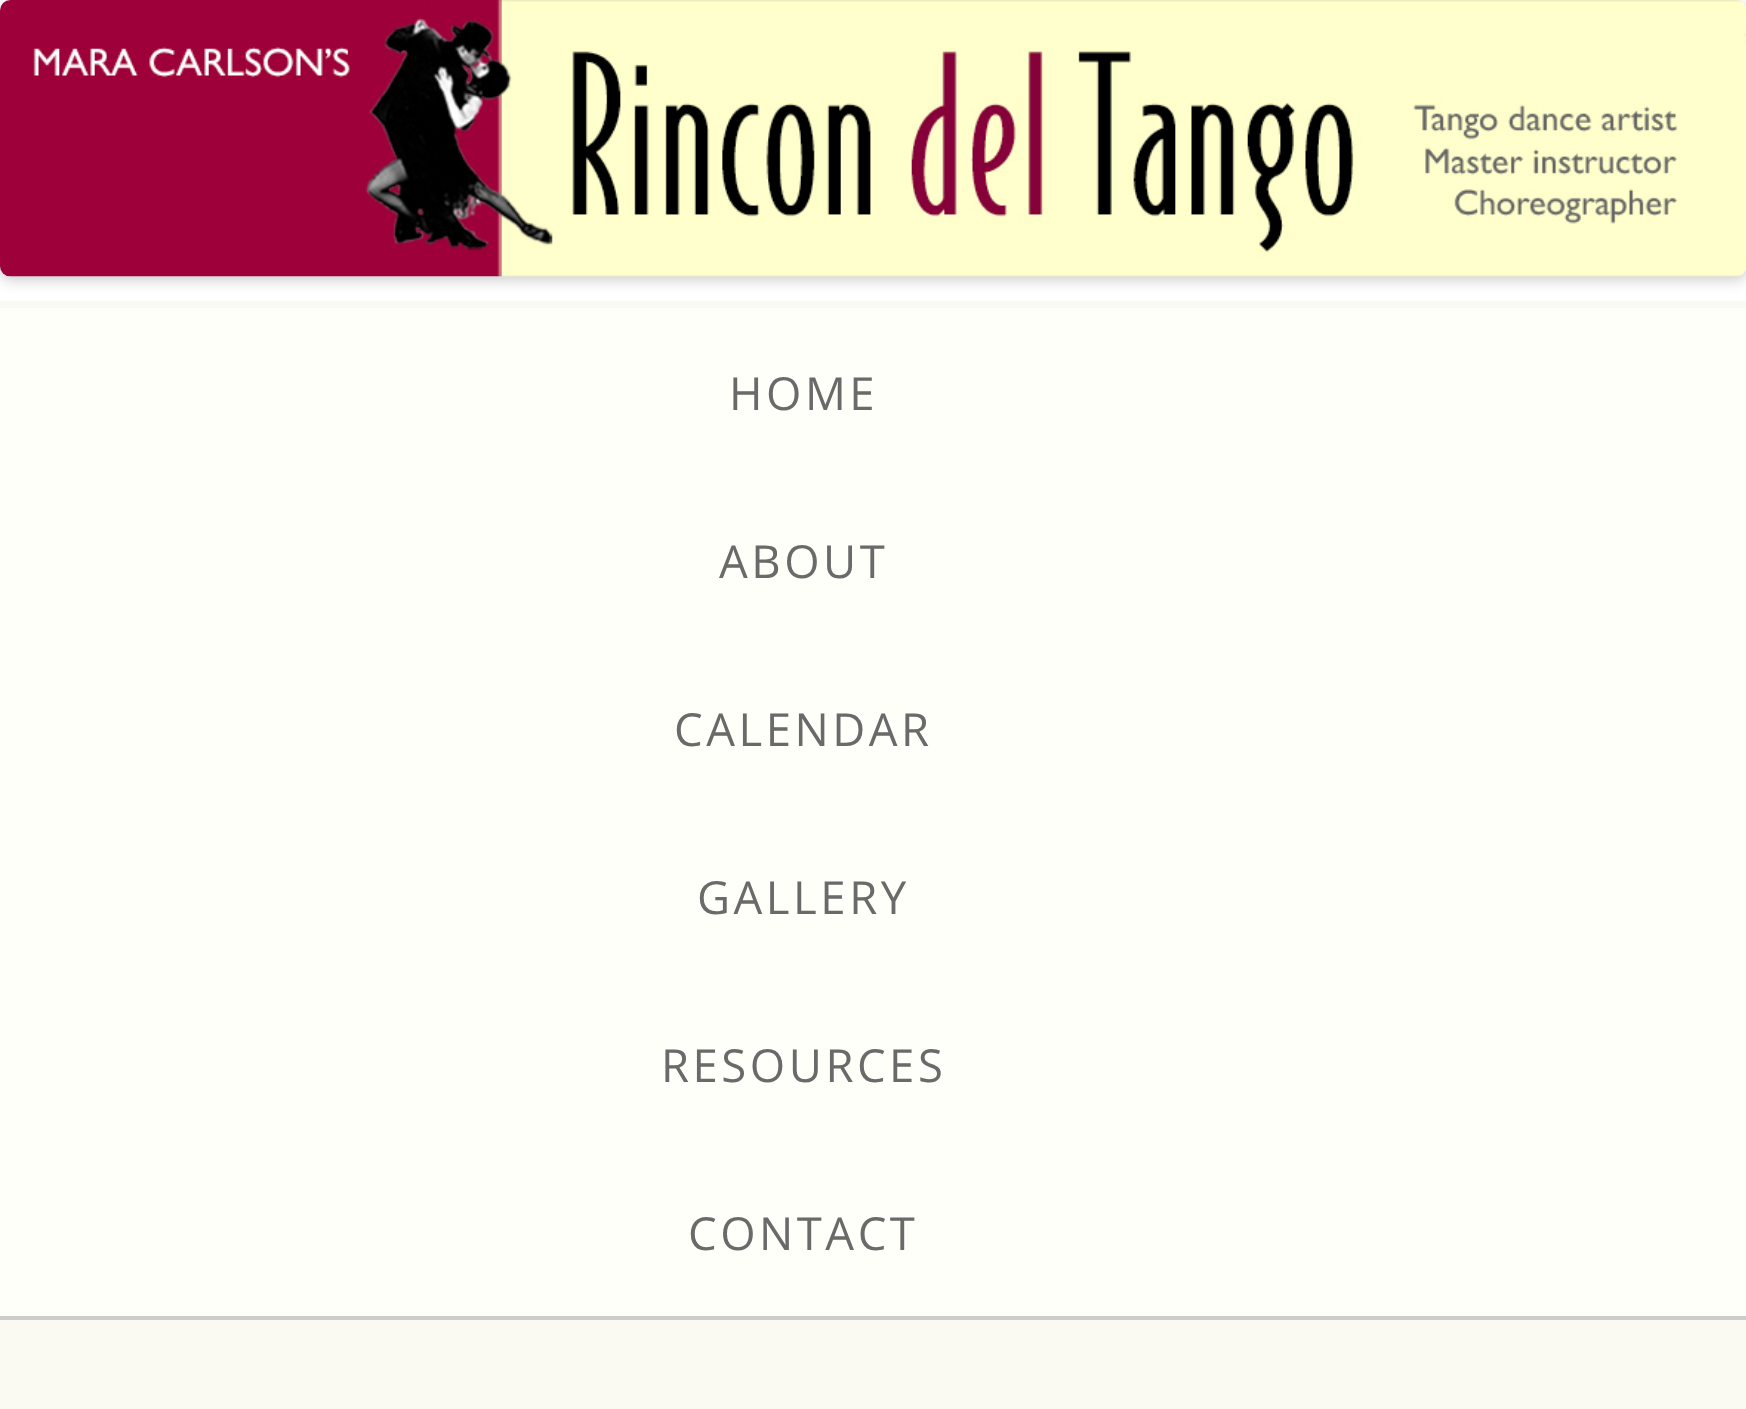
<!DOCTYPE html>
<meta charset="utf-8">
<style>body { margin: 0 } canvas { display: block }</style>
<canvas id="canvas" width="1746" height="1409"></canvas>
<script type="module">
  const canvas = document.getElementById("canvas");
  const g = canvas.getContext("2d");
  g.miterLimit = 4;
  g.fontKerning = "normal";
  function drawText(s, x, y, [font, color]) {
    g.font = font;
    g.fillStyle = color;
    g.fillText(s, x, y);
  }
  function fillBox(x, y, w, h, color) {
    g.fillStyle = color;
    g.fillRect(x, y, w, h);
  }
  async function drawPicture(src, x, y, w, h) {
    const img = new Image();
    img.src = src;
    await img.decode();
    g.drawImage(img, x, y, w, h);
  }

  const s1 = ["45.5px Open Sans", "#6A6A6A"];

  fillBox(0, 0, 1746, 1409, "#FFFFFF");
  g.fillStyle = "rgba(0, 0, 0, 0.2)";
  g.filter = "blur(7px)";
  g.beginPath();
  g.roundRect(0, 4, 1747, 276, 11);
  g.fill();
  g.filter = "none";
  await drawPicture("pic1.png", 0, 0, 1746, 277);
  fillBox(0, 308, 1746, 1008, "#FFFFF9");
  fillBox(0, 301, 1746, 7, "#FAFAF3");
  fillBox(0, 1316, 1746, 4, "#CCCCCC");
  g.letterSpacing = "3.5px";
  drawText("HOME", 729, 410, s1);
  drawText("ABOUT", 719, 578, s1);
  drawText("CALENDAR", 674, 746, s1);
  drawText("GALLERY", 697, 914, s1);
  drawText("RESOURCES", 661, 1082, s1);
  drawText("CONTACT", 688, 1250, s1);
  fillBox(0, 1320, 1746, 89, "#FAFAF3");
</script>
